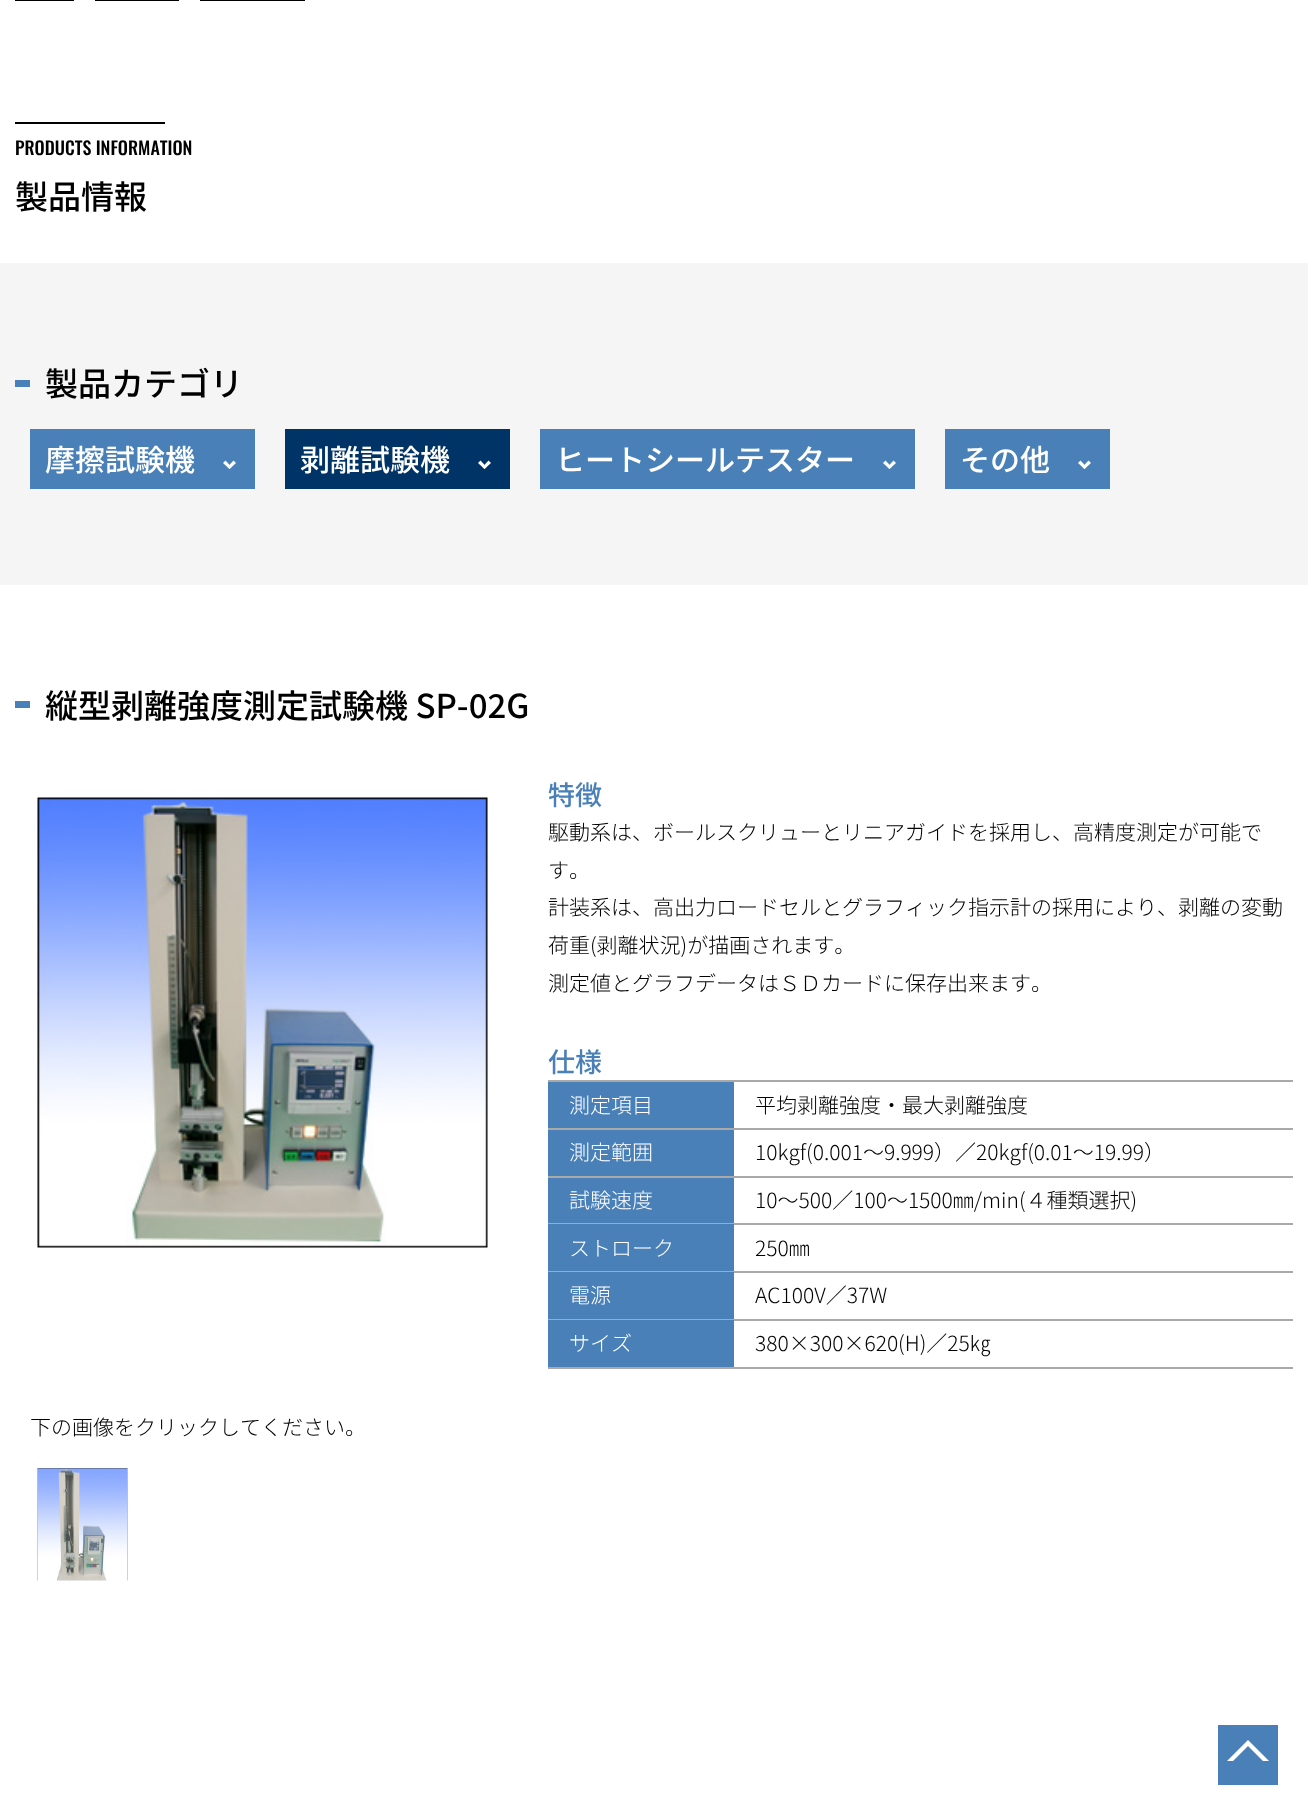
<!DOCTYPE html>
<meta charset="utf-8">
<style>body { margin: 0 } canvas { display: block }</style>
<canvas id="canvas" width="1308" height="1815"></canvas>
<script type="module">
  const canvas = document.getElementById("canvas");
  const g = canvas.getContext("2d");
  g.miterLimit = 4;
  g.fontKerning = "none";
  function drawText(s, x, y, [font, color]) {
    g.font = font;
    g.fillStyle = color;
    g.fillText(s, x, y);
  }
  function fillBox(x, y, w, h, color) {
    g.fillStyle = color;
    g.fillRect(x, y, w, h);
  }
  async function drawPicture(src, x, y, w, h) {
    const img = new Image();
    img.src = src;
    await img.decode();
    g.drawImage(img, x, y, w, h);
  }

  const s1 = ["500 18px Oswald", "#000000"];
  const s2 = ["500 33px Noto Sans JP", "#000000"];
  const s3 = ["500 30px Noto Sans JP", "#FFFFFF"];
  const s4 = ["500 27px Noto Sans JP", "#4980B7"];
  const s5 = ["300 21px Noto Sans JP", "#000000"];
  const s6 = ["300 21px Noto Sans JP", "#FFFFFF"];

  fillBox(0, 0, 1308, 1815, "#FFFFFF");
  fillBox(15, 0, 59, 1, "#000000");
  fillBox(95, 0, 84, 1, "#000000");
  fillBox(200, 0, 105, 1, "#000000");
  fillBox(15, 122, 150, 2, "#000000");
  drawText("PRODUCTS INFORMATION", 15, 155, s1);
  drawText("製品情報", 15, 209, s2);
  fillBox(0, 263, 1308, 322, "#F5F5F5");
  fillBox(15, 380, 15, 7, "#4980B7");
  drawText("製品カテゴリ", 45, 396, s2);
  fillBox(30, 429, 225, 60, "#4980B7");
  drawText("摩擦試験機", 45, 471, s3);
  g.beginPath();
  g.moveTo(236, 463);
  g.lineTo(229.5, 469);
  g.lineTo(227.5, 467);
  g.lineTo(233.5, 460.5);
  g.closePath();
  g.fill();
  g.beginPath();
  g.moveTo(231.5, 467);
  g.lineTo(229.5, 469);
  g.lineTo(223, 463);
  g.lineTo(225.5, 460.5);
  g.closePath();
  g.fill();
  fillBox(285, 429, 225, 60, "#003366");
  drawText("剥離試験機", 300, 471, s3);
  g.beginPath();
  g.moveTo(491, 463);
  g.lineTo(484.5, 469);
  g.lineTo(482.5, 467);
  g.lineTo(488.5, 460.5);
  g.closePath();
  g.fill();
  g.beginPath();
  g.moveTo(486.5, 467);
  g.lineTo(484.5, 469);
  g.lineTo(478, 463);
  g.lineTo(480.5, 460.5);
  g.closePath();
  g.fill();
  fillBox(540, 429, 375, 60, "#4980B7");
  drawText("ヒートシールテスター", 555, 471, s3);
  g.beginPath();
  g.moveTo(896, 463);
  g.lineTo(889.5, 469);
  g.lineTo(887.5, 467);
  g.lineTo(893.5, 460.5);
  g.closePath();
  g.fill();
  g.beginPath();
  g.moveTo(891.5, 467);
  g.lineTo(889.5, 469);
  g.lineTo(883, 463);
  g.lineTo(885.5, 460.5);
  g.closePath();
  g.fill();
  fillBox(945, 429, 165, 60, "#4980B7");
  drawText("その他", 960, 471, s3);
  g.beginPath();
  g.moveTo(1091, 463);
  g.lineTo(1084.5, 469);
  g.lineTo(1082.5, 467);
  g.lineTo(1088.5, 460.5);
  g.closePath();
  g.fill();
  g.beginPath();
  g.moveTo(1086.5, 467);
  g.lineTo(1084.5, 469);
  g.lineTo(1078, 463);
  g.lineTo(1080.5, 460.5);
  g.closePath();
  g.fill();
  fillBox(15, 701, 15, 7, "#4980B7");
  drawText("縦型剥離強度測定試験機 SP-02G", 45, 718, s2);
  drawText("特徴", 548, 805, s4);
  drawText("駆動系は、ボールスクリューとリニアガイドを採用し、高精度測定が可能で", 548, 840, s5);
  drawText("す。", 548, 878, s5);
  drawText("計装系は、高出力ロードセルとグラフィック指示計の採用により、剥離の変動", 548, 915, s5);
  drawText("荷重(剥離状況)が描画されます。", 548, 953, s5);
  drawText("測定値とグラフデータはＳＤカードに保存出来ます。", 548, 991, s5);
  drawText("仕様", 548, 1072, s4);
  fillBox(548, 1080, 745, 2, "#A9A9A9");
  fillBox(548, 1082, 186, 46, "#4980B7");
  fillBox(548, 1128, 745, 2, "#A9A9A9");
  drawText("測定項目", 569, 1113, s6);
  drawText("平均剥離強度・最大剥離強度", 755, 1113, s5);
  fillBox(548, 1130, 186, 46, "#4980B7");
  fillBox(548, 1176, 745, 2, "#A9A9A9");
  drawText("測定範囲", 569, 1160, s6);
  drawText("10kgf(0.001～9.999）／20kgf(0.01～19.99）", 755, 1160, s5);
  fillBox(548, 1178, 186, 45, "#4980B7");
  fillBox(548, 1223, 186, 1, "#A9A9A9");
  drawText("試験速度", 569, 1208, s6);
  fillBox(734, 1223, 559, 2, "#A9A9A9");
  drawText("10～500／100～1500㎜/min(４種類選択)", 755, 1208, s5);
  fillBox(548, 1224, 186, 47, "#4980B7");
  fillBox(548, 1271, 186, 1, "#A9A9A9");
  drawText("ストローク", 569, 1256, s6);
  fillBox(734, 1271, 559, 2, "#A9A9A9");
  drawText("250㎜", 755, 1256, s5);
  fillBox(548, 1272, 186, 47, "#4980B7");
  fillBox(548, 1319, 186, 1, "#A9A9A9");
  drawText("電源", 569, 1303, s6);
  fillBox(734, 1319, 559, 2, "#A9A9A9");
  drawText("AC100V／37W", 755, 1303, s5);
  fillBox(548, 1320, 186, 47, "#4980B7");
  fillBox(548, 1367, 745, 2, "#A9A9A9");
  drawText("サイズ", 569, 1351, s6);
  drawText("380×300×620(H)／25㎏", 755, 1351, s5);
  await drawPicture("pic1.png", 37, 797, 451, 451);
  drawText("下の画像をクリックしてください。", 30, 1435, s5);
  await drawPicture("pic2.png", 37, 1468, 91, 113);
  fillBox(1218, 1725, 60, 60, "#4980B7");
  g.fillStyle = "#FFFFFF";
  g.beginPath();
  g.moveTo(1227, 1761);
  g.lineTo(1248, 1740);
  g.lineTo(1248, 1746);
  g.lineTo(1233, 1761);
  g.closePath();
  g.moveTo(1248, 1740);
  g.lineTo(1269, 1761);
  g.lineTo(1263, 1761);
  g.lineTo(1248, 1746);
  g.closePath();
  g.fill();
</script>
